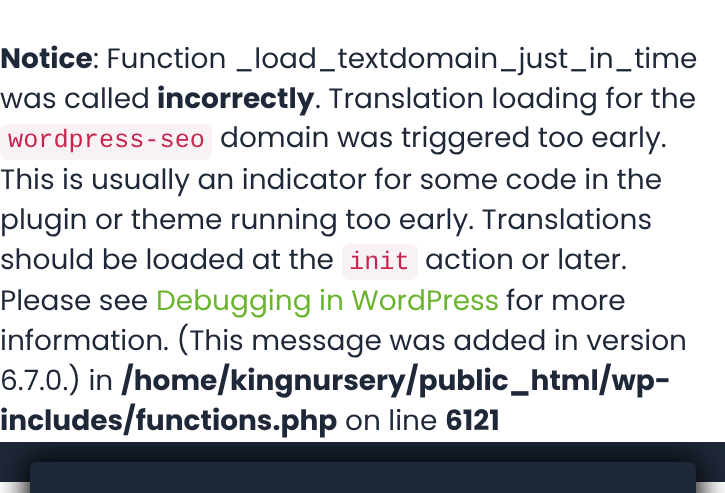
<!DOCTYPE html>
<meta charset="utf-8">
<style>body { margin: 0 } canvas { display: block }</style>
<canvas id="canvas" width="725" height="493"></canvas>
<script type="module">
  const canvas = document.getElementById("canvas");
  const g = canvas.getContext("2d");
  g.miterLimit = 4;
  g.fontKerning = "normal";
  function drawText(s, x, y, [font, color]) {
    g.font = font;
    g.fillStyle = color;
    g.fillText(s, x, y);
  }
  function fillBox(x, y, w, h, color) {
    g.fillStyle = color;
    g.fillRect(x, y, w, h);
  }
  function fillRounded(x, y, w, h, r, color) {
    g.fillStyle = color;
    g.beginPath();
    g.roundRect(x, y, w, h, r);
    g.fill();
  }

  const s1 = ["bold 28px Poppins", "#1F2839"];
  const s2 = ["28px Poppins", "#1F2839"];
  const s3 = ["25.25px Liberation Mono", "#C7254E"];
  const s4 = ["28px Poppins", "#6BB42F"];

  fillBox(0, 0, 725, 493, "#FFFFFF");
  drawText("Notice", 0, 68, s1);
  drawText(": Function _load_textdomain_just_in_time", 93, 68, s2);
  drawText("was called", 0, 108, s2);
  drawText("incorrectly", 157, 108, s1);
  drawText(". Translation loading for the", 315, 108, s2);
  fillRounded(0, 124, 212, 36, 8, "#F9F2F4");
  drawText("wordpress-seo", 8, 147, s3);
  drawText("domain was triggered too early.", 220, 147, s2);
  drawText("This is usually an indicator for some code in the", 0, 189, s2);
  drawText("plugin or theme running too early. Translations", 0, 229, s2);
  drawText("should be loaded at the", 0, 269, s2);
  fillRounded(342, 244, 76, 36, 8, "#F9F2F4");
  drawText("init", 349, 269, s3);
  drawText("action or later.", 425, 269, s2);
  drawText("Please see", 0, 310, s2);
  drawText("Debugging in WordPress", 156, 310, s4);
  drawText("for more", 506, 310, s2);
  drawText("information. (This message was added in version", 0, 350, s2);
  drawText("6.7.0.) in", 0, 390, s2);
  drawText("/home/kingnursery/public_html/wp-", 121, 390, s1);
  drawText("includes/functions.php", 0, 430, s1);
  drawText("on line", 345, 430, s2);
  drawText("6121", 445, 430, s1);
  fillBox(0, 442, 725, 40, "#1F2839");
  g.save();
  g.beginPath();
  g.rect(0, 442, 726, 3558);
  g.clip();
  g.fillStyle = "#000000";
  g.filter = "blur(15px)";
  g.beginPath();
  g.roundRect(26, 458, 674, 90, 10);
  g.fill();
  g.filter = "none";
  g.restore();
  fillRounded(30, 462, 666, 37, 6, "#1F2839");
</script>
